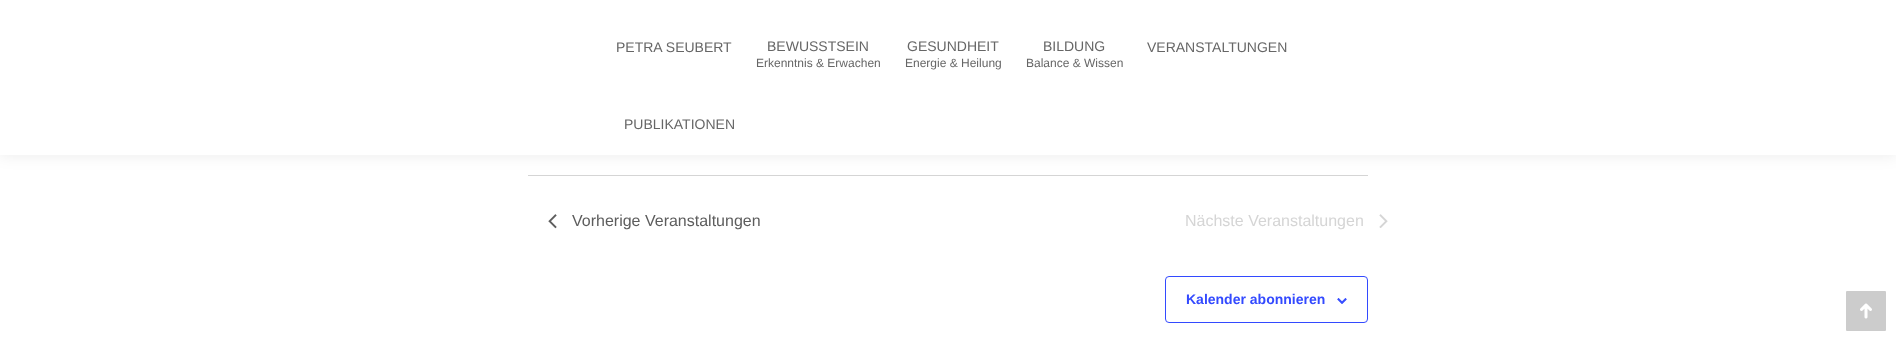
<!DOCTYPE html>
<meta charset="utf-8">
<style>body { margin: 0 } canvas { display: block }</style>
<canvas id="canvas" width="1896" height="341"></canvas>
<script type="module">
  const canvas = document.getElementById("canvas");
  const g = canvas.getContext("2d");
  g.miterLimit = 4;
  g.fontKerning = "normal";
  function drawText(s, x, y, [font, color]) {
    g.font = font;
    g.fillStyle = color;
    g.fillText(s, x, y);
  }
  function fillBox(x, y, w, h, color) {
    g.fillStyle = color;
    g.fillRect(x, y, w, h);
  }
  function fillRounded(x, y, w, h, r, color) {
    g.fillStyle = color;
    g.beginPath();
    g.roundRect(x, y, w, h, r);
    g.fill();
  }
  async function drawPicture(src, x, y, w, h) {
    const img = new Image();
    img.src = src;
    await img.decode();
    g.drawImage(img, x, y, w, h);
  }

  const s1 = ["14px Liberation Sans", "#666666"];
  const s2 = ["12px Liberation Sans", "#666666"];
  const s3 = ["16px Liberation Sans", "#5D5D5D"];
  const s4 = ["16px Liberation Sans", "#D5D5D5"];
  const s5 = ["bold 14px Liberation Sans", "#334AFF"];

  fillBox(0, 0, 1896, 341, "#FFFFFF");
  fillBox(528, 175, 840, 1, "#D5D5D5");
  g.fillStyle = "rgba(0, 0, 0, 0.07)";
  g.filter = "blur(7.5px)";
  g.beginPath();
  g.rect(-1, -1, 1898, 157);
  g.fill();
  g.filter = "none";
  fillBox(0, 0, 1896, 155, "#FFFFFF");
  drawText("PETRA SEUBERT", 616, 52, s1);
  drawText("BEWUSSTSEIN", 767, 51, s1);
  drawText("Erkenntnis & Erwachen", 756, 67, s2);
  drawText("GESUNDHEIT", 907, 51, s1);
  drawText("Energie & Heilung", 905, 67, s2);
  drawText("BILDUNG", 1043, 51, s1);
  drawText("Balance & Wissen", 1026, 67, s2);
  drawText("VERANSTALTUNGEN", 1147, 52, s1);
  drawText("PUBLIKATIONEN", 624, 129, s1);
  await drawPicture("pic1.png", 548, 214, 9, 15);
  drawText("Vorherige Veranstaltungen", 572, 226, s3);
  drawText("Nächste Veranstaltungen", 1185, 226, s4);
  await drawPicture("pic2.png", 1379, 214, 9, 14);
  g.beginPath();
  g.roundRect(1165.5, 276.5, 202, 46, 3.5);
  g.strokeStyle = "#334AFF";
  g.stroke();
  drawText("Kalender abonnieren", 1186, 304, s5);
  await drawPicture("pic3.png", 1337, 298, 10, 6);
  fillRounded(1846, 291, 40, 40, 1, "#CCCCCC");
  await drawPicture("pic4.png", 1860, 303, 12, 16);
</script>
